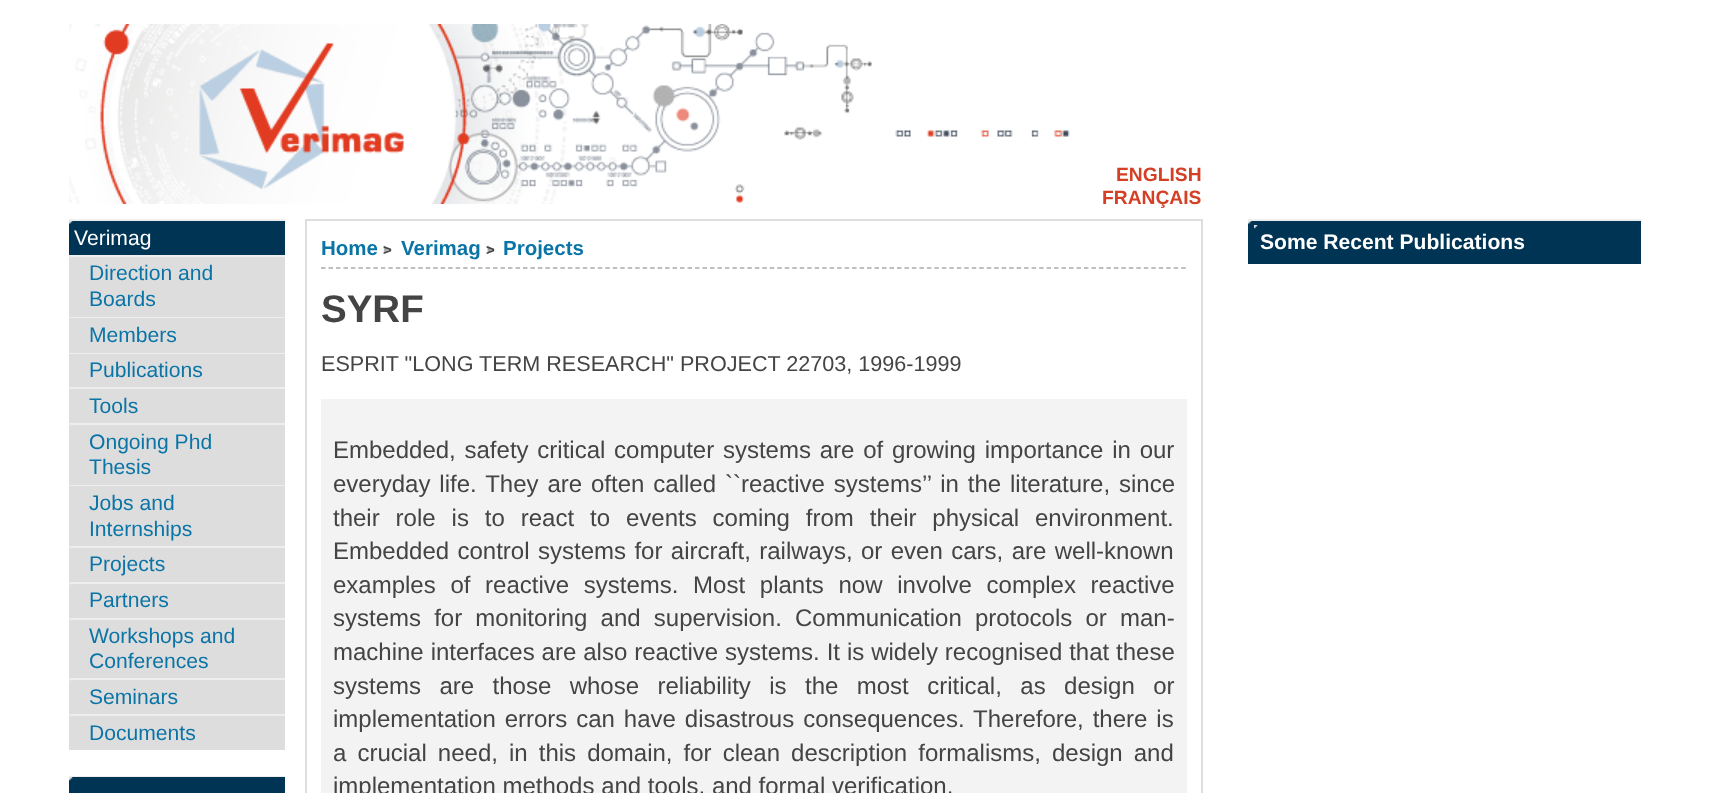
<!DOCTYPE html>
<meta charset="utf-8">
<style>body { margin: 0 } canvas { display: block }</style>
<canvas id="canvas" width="1710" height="793"></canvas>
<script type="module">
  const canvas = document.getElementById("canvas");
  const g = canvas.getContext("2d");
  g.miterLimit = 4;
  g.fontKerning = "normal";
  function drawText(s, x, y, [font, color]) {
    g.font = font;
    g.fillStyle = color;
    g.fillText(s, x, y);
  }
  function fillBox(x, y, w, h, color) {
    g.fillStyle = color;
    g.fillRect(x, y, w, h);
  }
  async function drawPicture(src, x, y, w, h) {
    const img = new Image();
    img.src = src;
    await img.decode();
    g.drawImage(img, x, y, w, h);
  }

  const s1 = ["bold 19.25px Liberation Sans", "#D44026"];
  const s2 = ["21.1px Liberation Sans", "#FFFFFF"];
  const s3 = ["21.1px Liberation Sans", "#0A74A6"];
  const s4 = ["bold 20.5px Liberation Sans", "#0A74A6"];
  const s5 = ["bold 15px Liberation Sans", "#444444"];
  const s6 = ["bold 38.5px Liberation Sans", "#444444"];
  const s7 = ["21.6px Liberation Sans", "#444444"];
  const s8 = ["24px Liberation Sans", "#444444"];
  const s9 = ["bold 21.1px Liberation Sans", "#FFFFFF"];

  fillBox(0, 0, 1710, 793, "#FFFFFF");
  await drawPicture("pic1.png", 69, 24, 1001, 180);
  drawText("ENGLISH", 1116, 181, s1);
  drawText("FRANÇAIS", 1102, 204, s1);
  fillBox(69, 219, 216, 2, "#EEEEEE");
  fillBox(69, 221, 216, 34, "#003454");
  await drawPicture("pic2.png", 69, 220, 4, 4);
  drawText("Verimag", 74, 245, s2);
  fillBox(69, 255, 216, 2, "#EEEEEE");
  fillBox(69, 257, 216, 60, "#DDDDDD");
  await drawPicture("pic3.png", 69, 256, 3, 2);
  drawText("Direction and", 89, 280, s3);
  drawText("Boards", 89, 306, s3);
  fillBox(69, 317, 216, 1, "#EEEEEE");
  fillBox(69, 318, 216, 35, "#DDDDDD");
  drawText("Members", 89, 342, s3);
  fillBox(69, 353, 216, 1, "#EEEEEE");
  fillBox(69, 354, 216, 33, "#DDDDDD");
  drawText("Publications", 89, 377, s3);
  fillBox(69, 387, 216, 2, "#EEEEEE");
  fillBox(69, 389, 216, 34, "#DDDDDD");
  await drawPicture("pic3.png", 69, 388, 3, 2);
  drawText("Tools", 89, 413, s3);
  fillBox(69, 423, 216, 2, "#EEEEEE");
  fillBox(69, 425, 216, 60, "#DDDDDD");
  await drawPicture("pic3.png", 69, 424, 3, 2);
  drawText("Ongoing Phd", 89, 449, s3);
  drawText("Thesis", 89, 474, s3);
  fillBox(69, 485, 216, 1, "#EEEEEE");
  fillBox(69, 486, 216, 60, "#DDDDDD");
  drawText("Jobs and", 89, 510, s3);
  drawText("Internships", 89, 536, s3);
  fillBox(69, 546, 216, 2, "#EEEEEE");
  fillBox(69, 548, 216, 34, "#DDDDDD");
  await drawPicture("pic3.png", 69, 547, 3, 2);
  drawText("Projects", 89, 571, s3);
  fillBox(69, 582, 216, 2, "#EEEEEE");
  fillBox(69, 584, 216, 34, "#DDDDDD");
  await drawPicture("pic3.png", 69, 583, 3, 2);
  drawText("Partners", 89, 607, s3);
  fillBox(69, 618, 216, 2, "#EEEEEE");
  fillBox(69, 620, 216, 58, "#DDDDDD");
  await drawPicture("pic3.png", 69, 619, 3, 2);
  drawText("Workshops and", 89, 643, s3);
  drawText("Conferences", 89, 668, s3);
  fillBox(69, 678, 216, 2, "#EEEEEE");
  fillBox(69, 680, 216, 34, "#DDDDDD");
  await drawPicture("pic3.png", 69, 679, 3, 2);
  drawText("Seminars", 89, 704, s3);
  fillBox(69, 714, 216, 2, "#EEEEEE");
  fillBox(69, 716, 216, 34, "#DDDDDD");
  await drawPicture("pic3.png", 69, 715, 3, 2);
  drawText("Documents", 89, 740, s3);
  fillBox(69, 776, 216, 1, "#EEEEEE");
  fillBox(69, 777, 216, 16, "#003454");
  await drawPicture("pic4.png", 69, 777, 4, 4);
  g.strokeStyle = "#DEDEDE";
  g.lineWidth = 2;
  g.strokeRect(306, 220, 896, 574);
  drawText("Home", 321, 255, s4);
  await drawPicture("pic5.png", 383, 245, 6, 9);
  drawText("Verimag", 401, 255, s4);
  await drawPicture("pic6.png", 487, 245, 6, 9);
  drawText("Projects", 503, 255, s4);
  drawText(">", 383, 255, s5);
  drawText(">", 486, 255, s5);
  g.beginPath();
  g.moveTo(321, 268);
  g.lineTo(1186.5, 268);
  g.strokeStyle = "#AAAAAA";
  g.lineWidth = 1.5;
  g.setLineDash([4.5, 2.98]);
  g.stroke();
  drawText("SYRF", 321, 322, s6);
  drawText("ESPRIT \"LONG TERM RESEARCH\" PROJECT 22703, 1996-1999", 321, 371, s7);
  fillBox(321, 399, 866, 394, "#F3F3F3");
  g.wordSpacing = "2.1px";
  drawText("Embedded, safety critical computer systems are of growing importance in our", 333, 458, s8);
  g.wordSpacing = "2.25px";
  drawText("everyday life. They are often called ``reactive systems’’ in the literature, since", 333, 492, s8);
  g.wordSpacing = "9.25px";
  drawText("their role is to react to events coming from their physical environment.", 333, 526, s8);
  g.wordSpacing = "1.75px";
  drawText("Embedded control systems for aircraft, railways, or even cars, are well-known", 333, 559, s8);
  g.wordSpacing = "8px";
  drawText("examples of reactive systems. Most plants now involve complex reactive", 333, 593, s8);
  g.wordSpacing = "6.5px";
  drawText("systems for monitoring and supervision. Communication protocols or man-", 333, 626, s8);
  g.wordSpacing = "0.25px";
  drawText("machine interfaces are also reactive systems. It is widely recognised that these", 333, 660, s8);
  g.wordSpacing = "11.75px";
  drawText("systems are those whose reliability is the most critical, as design or", 333, 694, s8);
  g.wordSpacing = "2.25px";
  drawText("implementation errors can have disastrous consequences. Therefore, there is", 333, 727, s8);
  g.wordSpacing = "4.4px";
  drawText("a crucial need, in this domain, for clean description formalisms, design and", 333, 761, s8);
  g.wordSpacing = "0px";
  drawText("implementation methods and tools, and formal verification.", 333, 794, s8);
  fillBox(1248, 219, 393, 2, "#EEEEEE");
  fillBox(1248, 221, 393, 43, "#003454");
  await drawPicture("pic7.png", 1248, 220, 4, 4);
  await drawPicture("pic8.png", 1254, 225, 4, 4);
  drawText("Some Recent Publications", 1260, 249, s9);
</script>
